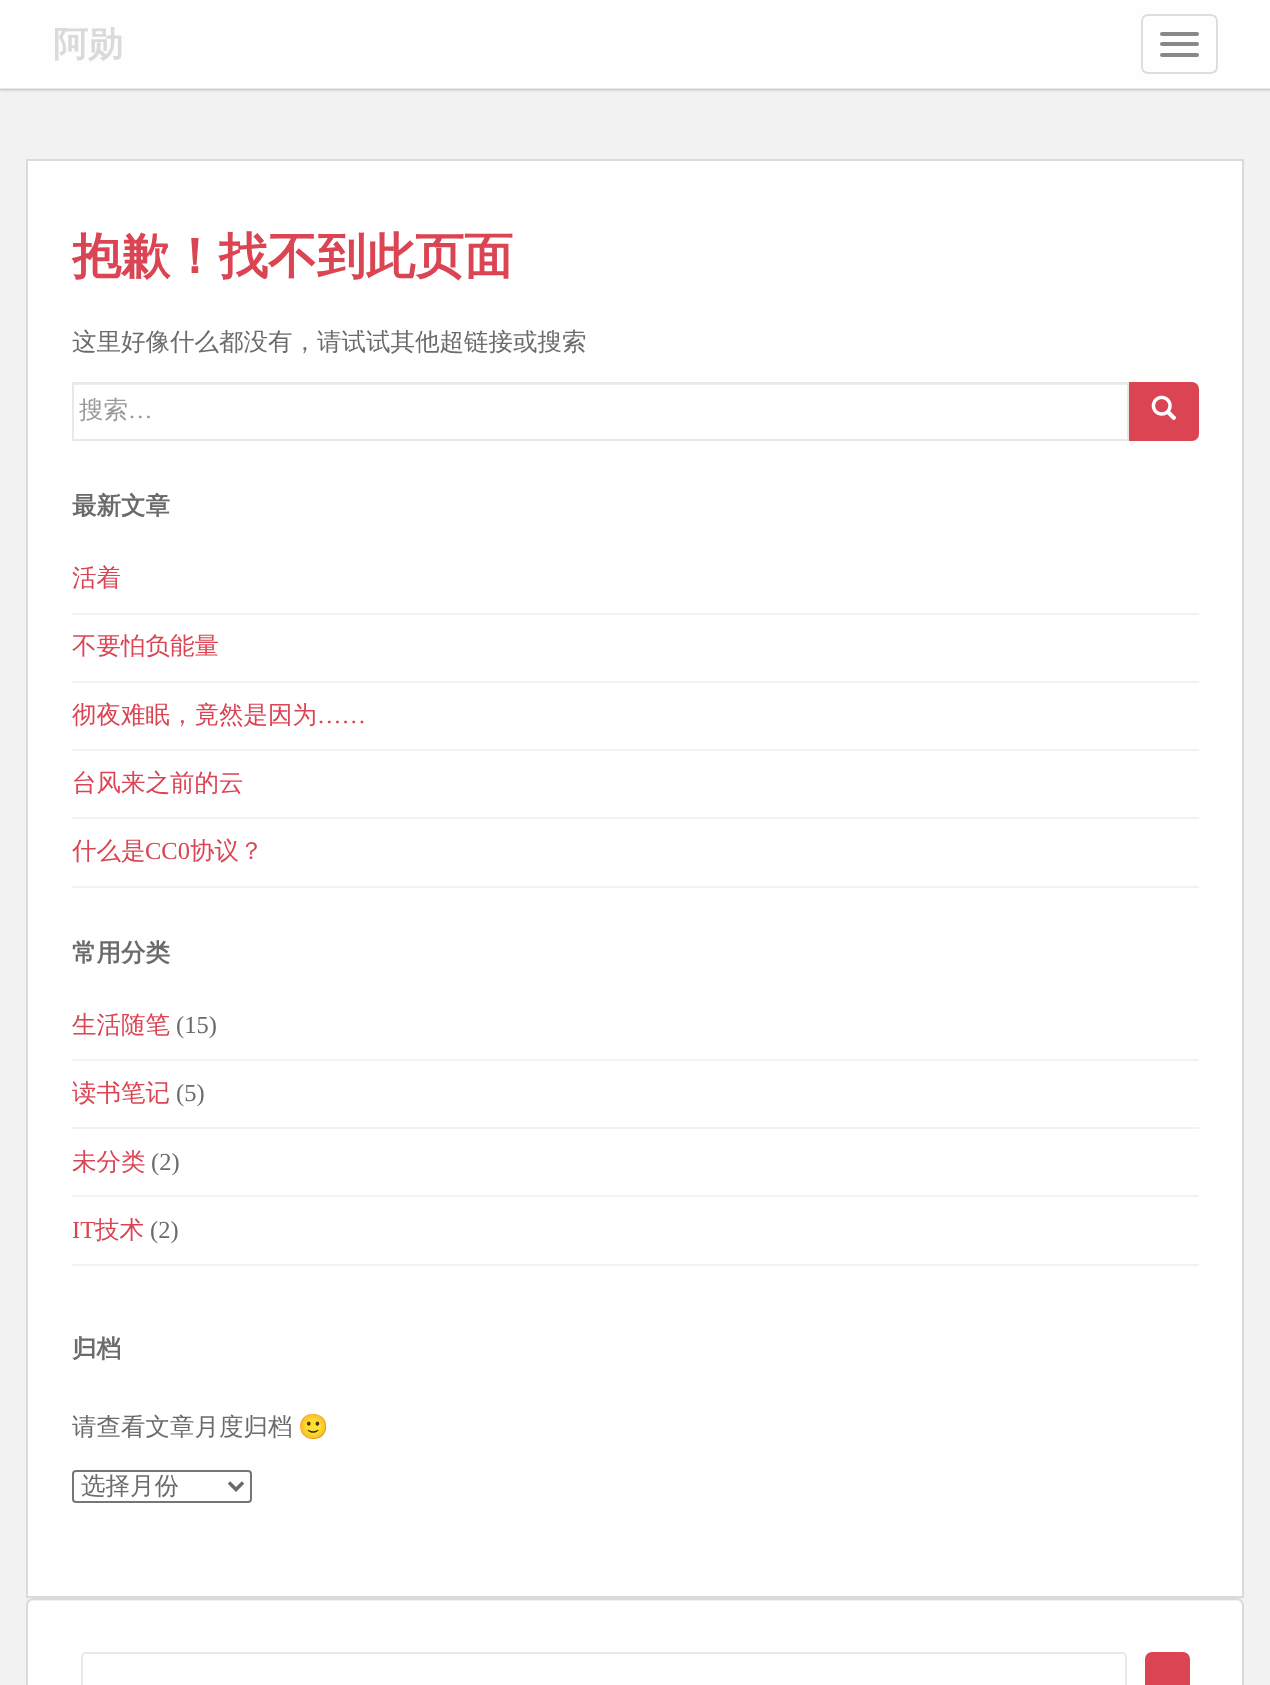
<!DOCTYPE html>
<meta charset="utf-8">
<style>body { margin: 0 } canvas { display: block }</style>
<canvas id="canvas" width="1270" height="1685"></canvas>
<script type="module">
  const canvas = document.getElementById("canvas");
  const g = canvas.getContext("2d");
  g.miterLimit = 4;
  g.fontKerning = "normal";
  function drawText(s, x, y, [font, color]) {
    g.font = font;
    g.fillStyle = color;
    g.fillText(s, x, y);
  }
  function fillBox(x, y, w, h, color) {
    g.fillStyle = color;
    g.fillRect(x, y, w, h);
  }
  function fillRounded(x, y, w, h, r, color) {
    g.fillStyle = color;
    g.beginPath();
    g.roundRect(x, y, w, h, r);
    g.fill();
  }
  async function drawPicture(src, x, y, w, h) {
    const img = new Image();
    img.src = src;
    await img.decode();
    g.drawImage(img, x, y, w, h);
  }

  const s1 = ["bold 35px WenQuanYi Zen Hei", "#DADADA"];
  const s2 = ["bold 49px WenQuanYi Zen Hei", "#DA4453"];
  const s3 = ["500 24.5px WenQuanYi Zen Hei", "#6B6B6B"];
  const s4 = ["500 24.5px WenQuanYi Zen Hei", "#999999"];
  const s5 = ["24.5px Liberation Serif", "#999999"];
  const s6 = ["bold 24.5px WenQuanYi Zen Hei", "#6B6B6B"];
  const s7 = ["500 24.5px WenQuanYi Zen Hei", "#DA4453"];
  const s8 = ["24.5px Liberation Serif", "#DA4453"];
  const s9 = ["24.5px Liberation Serif", "#6B6B6B"];
  const s10 = ["24.5px Noto Color Emoji", "#6B6B6B"];

  fillBox(0, 0, 1270, 1685, "#F2F2F2");
  g.fillStyle = "rgba(0, 0, 0, 0.1)";
  g.filter = "blur(1px)";
  g.beginPath();
  g.rect(0, 2, 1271, 89);
  g.fill();
  g.filter = "none";
  fillBox(0, 0, 1270, 89, "#FEFEFE");
  fillBox(0, 88, 1270, 2, "rgba(0, 0, 0, 0.08)");
  drawText("阿勋", 53, 56, s1);
  g.beginPath();
  g.roundRect(1142, 15, 75, 58, 6);
  g.strokeStyle = "#DDDDDD";
  g.lineWidth = 2;
  g.stroke();
  fillRounded(1160, 32, 39, 4, 2, "#888888");
  fillRounded(1160, 42, 39, 4, 2, "#888888");
  fillRounded(1160, 53, 39, 4, 2, "#888888");
  g.fillStyle = "#FFFFFF";
  g.beginPath();
  g.rect(27, 160, 1216, 1437);
  g.fill();
  g.strokeStyle = "#DADADA";
  g.stroke();
  drawText("抱歉！找不到此页面", 72, 273, s2);
  drawText("这里好像什么都没有，请试试其他超链接或搜索", 72, 350, s3);
  fillBox(74, 384, 1053, 1, "#ECECEC");
  g.strokeStyle = "#E8E8E8";
  g.strokeRect(73, 383, 1055, 57);
  drawText("搜索", 79, 418, s4);
  drawText("…", 128, 418, s5);
  g.fillStyle = "#DA4453";
  g.beginPath();
  g.roundRect(1130, 383, 68, 57, [0, 6, 6, 0]);
  g.fill();
  g.strokeStyle = "#DA4453";
  g.stroke();
  await drawPicture("pic1.png", 1151, 395, 26, 26);
  drawText("最新文章", 72, 514, s6);
  fillBox(72, 613, 1127, 2, "#F2F2F2");
  drawText("活着", 72, 586, s7);
  fillBox(72, 681, 1127, 2, "#F2F2F2");
  drawText("不要怕负能量", 72, 654, s7);
  fillBox(72, 749, 1127, 2, "#F2F2F2");
  drawText("彻夜难眠，竟然是因为", 72, 723, s7);
  drawText("……", 317, 723, s8);
  fillBox(72, 817, 1127, 2, "#F2F2F2");
  drawText("台风来之前的云", 72, 791, s7);
  fillBox(72, 886, 1127, 2, "#F2F2F2");
  drawText("什么是", 72, 859, s7);
  drawText("CC0", 145, 859, s8);
  drawText("协议？", 190, 859, s7);
  drawText("常用分类", 72, 961, s6);
  fillBox(72, 1059, 1127, 2, "#F2F2F2");
  drawText("生活随笔", 72, 1033, s7);
  drawText("(15)", 176, 1033, s9);
  fillBox(72, 1127, 1127, 2, "#F2F2F2");
  drawText("读书笔记", 72, 1101, s7);
  drawText("(5)", 176, 1101, s9);
  fillBox(72, 1195, 1127, 2, "#F2F2F2");
  drawText("未分类", 72, 1170, s7);
  drawText("(2)", 151, 1170, s9);
  fillBox(72, 1264, 1127, 2, "#F2F2F2");
  drawText("IT", 72, 1238, s8);
  drawText("技术", 95, 1238, s7);
  drawText("(2)", 150, 1238, s9);
  drawText("归档", 72, 1357, s6);
  drawText("请查看文章月度归档", 72, 1435, s3);
  drawText("🙂", 298, 1435, s10);
  g.beginPath();
  g.roundRect(73, 1471, 178, 31, 3);
  g.strokeStyle = "#767676";
  g.stroke();
  g.beginPath();
  g.moveTo(229, 1482.5);
  g.lineTo(236, 1489.5);
  g.lineTo(243, 1482.5);
  g.strokeStyle = "#6B6B6B";
  g.lineWidth = 3.5;
  g.stroke();
  drawText("选择月份", 81, 1494, s3);
  fillRounded(26, 1598, 1218, 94, 7, "#FFFFFF");
  g.fillStyle = "#F2F2F2";
  g.beginPath();
  g.moveTo(33, 1601);
  g.lineTo(1237, 1601);
  g.bezierCurveTo(1240, 1601, 1242, 1604, 1242, 1606);
  g.lineTo(1242, 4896);
  g.bezierCurveTo(1243, 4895, 1243, 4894, 1243, 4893);
  g.lineTo(1243, 1605);
  g.bezierCurveTo(1243, 1602, 1241, 1600, 1238, 1600);
  g.lineTo(33, 1600);
  g.bezierCurveTo(30, 1600, 28, 1602, 28, 1605);
  g.lineTo(28, 1606);
  g.bezierCurveTo(28, 1604, 30, 1601, 33, 1601);
  g.closePath();
  g.fill();
  g.beginPath();
  g.roundRect(27, 1599, 1216, 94, 6);
  g.strokeStyle = "#DADADA";
  g.lineWidth = 2;
  g.stroke();
  g.beginPath();
  g.roundRect(82, 1653, 1044, 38, 4);
  g.strokeStyle = "#E8E8E8";
  g.stroke();
  g.fillStyle = "#DA4453";
  g.beginPath();
  g.roundRect(1146, 1653, 43, 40, 6);
  g.fill();
  g.strokeStyle = "#DA4453";
  g.stroke();
</script>
